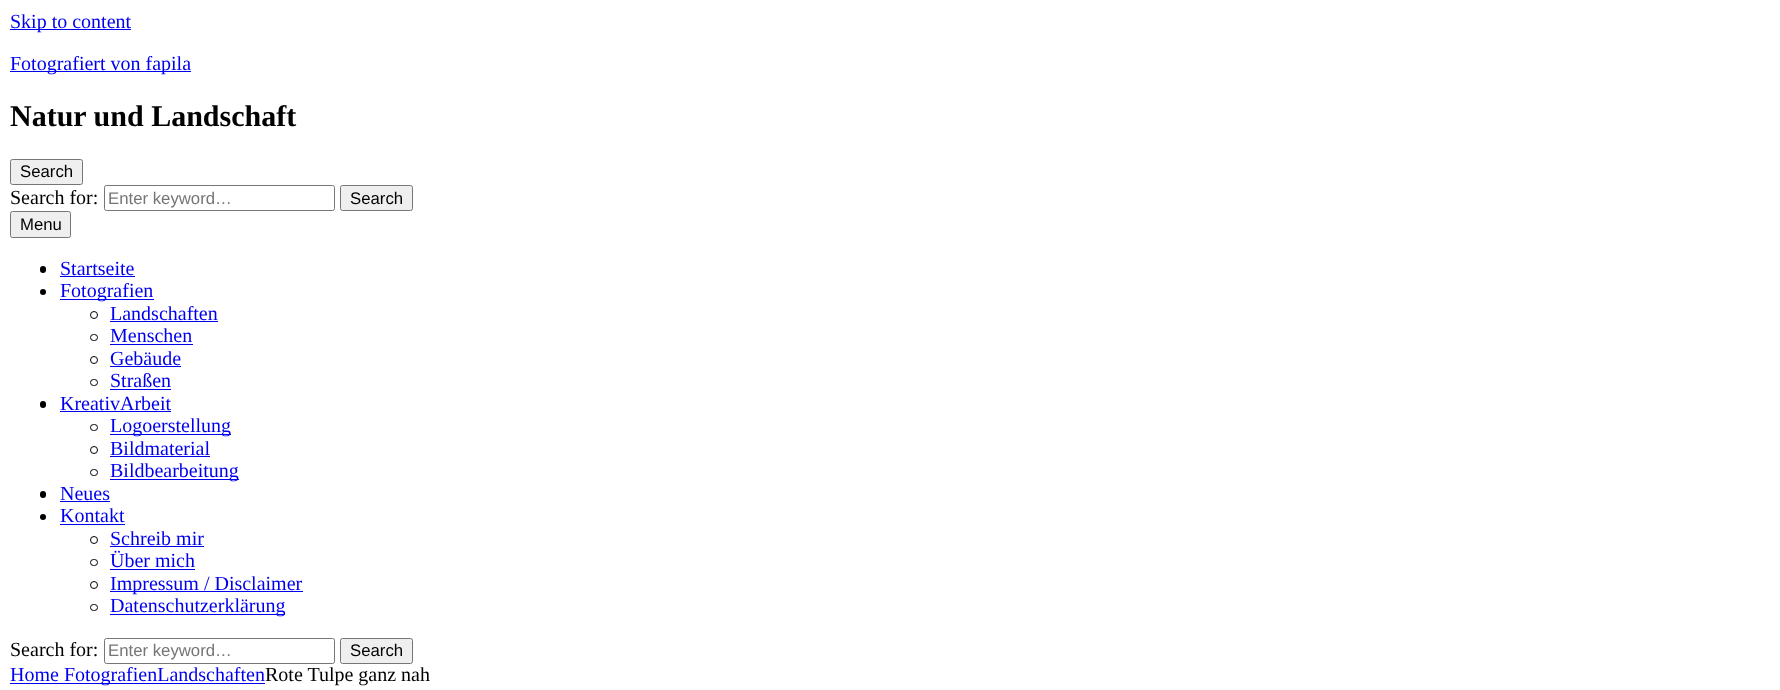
<!DOCTYPE html>
<meta charset="utf-8">
<style>body { margin: 0 } canvas { display: block }</style>
<canvas id="canvas" width="1780" height="690"></canvas>
<script type="module">
  const canvas = document.getElementById("canvas");
  const g = canvas.getContext("2d");
  g.miterLimit = 4;
  g.fontKerning = "normal";
  function drawText(s, x, y, [font, color]) {
    g.font = font;
    g.fillStyle = color;
    g.fillText(s, x, y);
  }
  function fillBox(x, y, w, h, color) {
    g.fillStyle = color;
    g.fillRect(x, y, w, h);
  }
  function fillRounded(x, y, w, h, r, color) {
    g.fillStyle = color;
    g.beginPath();
    g.roundRect(x, y, w, h, r);
    g.fill();
  }

  const s1 = ["20px Liberation Serif", "#0000EE"];
  const s2 = ["bold 30px Liberation Serif", "#000000"];
  const s3 = ["16.75px Liberation Sans", "#000000"];
  const s4 = ["20px Liberation Serif", "#000000"];
  const s5 = ["16.75px Liberation Sans", "#757575"];

  fillBox(0, 0, 1780, 690, "#FFFFFF");
  fillBox(10, 29, 121, 1, "#0000EE");
  drawText("Skip to content", 10, 28, s1);
  fillBox(10, 71, 181, 1, "#0000EE");
  drawText("Fotografiert von fapila", 10, 70, s1);
  drawText("Natur und Landschaft", 10, 126, s2);
  g.fillStyle = "#EFEFEF";
  g.beginPath();
  g.roundRect(10.5, 159.5, 72, 25, 2);
  g.fill();
  g.strokeStyle = "#767676";
  g.stroke();
  drawText("Search", 20, 177, s3);
  drawText("Search for:", 10, 204, s4);
  g.beginPath();
  g.roundRect(104.5, 185.5, 230, 25, 2);
  g.stroke();
  drawText("Enter keyword…", 108, 204, s5);
  g.fillStyle = "#EFEFEF";
  g.beginPath();
  g.roundRect(340.5, 185.5, 72, 25, 2);
  g.fill();
  g.stroke();
  drawText("Search", 350, 204, s3);
  g.fillStyle = "#EFEFEF";
  g.beginPath();
  g.roundRect(10.5, 211.5, 60, 26, 2);
  g.fill();
  g.stroke();
  drawText("Menu", 20, 230, s3);
  fillRounded(40, 266, 6, 7, 3, "#000000");
  drawText("Startseite", 60, 275, s1);
  fillBox(60, 276, 75, 1, "#0000EE");
  g.fillStyle = "#000000";
  g.beginPath();
  g.arc(43, 292, 3, 0, Math.PI * 2);
  g.fill();
  fillBox(60, 299, 94, 1, "#0000EE");
  drawText("Fotografien", 60, 297, s1);
  g.beginPath();
  g.arc(94, 315, 3.5, 0, Math.PI * 2);
  g.strokeStyle = "#000000";
  g.stroke();
  drawText("Landschaften", 110, 320, s1);
  fillBox(110, 321, 108, 1, "#0000EE");
  g.beginPath();
  g.roundRect(90.5, 334.5, 7, 6, 3);
  g.stroke();
  drawText("Menschen", 110, 342, s1);
  fillBox(110, 344, 83, 1, "#0000EE");
  g.beginPath();
  g.arc(94, 360, 3.5, 0, Math.PI * 2);
  g.stroke();
  drawText("Gebäude", 110, 365, s1);
  fillBox(110, 366, 71, 1, "#0000EE");
  g.beginPath();
  g.roundRect(90.5, 379.5, 7, 6, 3);
  g.stroke();
  drawText("Straßen", 110, 387, s1);
  fillBox(110, 389, 61, 1, "#0000EE");
  fillRounded(40, 401, 6, 7, 3, "#000000");
  drawText("KreativArbeit", 60, 410, s1);
  fillBox(60, 411, 111, 1, "#0000EE");
  g.beginPath();
  g.roundRect(90.5, 424.5, 7, 6, 3);
  g.stroke();
  fillBox(110, 434, 121, 1, "#0000EE");
  drawText("Logoerstellung", 110, 432, s1);
  g.beginPath();
  g.arc(94, 450, 3.5, 0, Math.PI * 2);
  g.stroke();
  drawText("Bildmaterial", 110, 455, s1);
  fillBox(110, 456, 100, 1, "#0000EE");
  g.beginPath();
  g.roundRect(90.5, 469.5, 7, 6, 3);
  g.stroke();
  fillBox(110, 479, 129, 1, "#0000EE");
  drawText("Bildbearbeitung", 110, 477, s1);
  fillRounded(40, 491, 6, 7, 3, "#000000");
  drawText("Neues", 60, 500, s1);
  fillBox(60, 501, 50, 1, "#0000EE");
  g.fillStyle = "#000000";
  g.beginPath();
  g.arc(43, 517, 3, 0, Math.PI * 2);
  g.fill();
  drawText("Kontakt", 60, 522, s1);
  fillBox(60, 524, 65, 1, "#0000EE");
  g.beginPath();
  g.arc(94, 540, 3.5, 0, Math.PI * 2);
  g.stroke();
  drawText("Schreib mir", 110, 545, s1);
  fillBox(110, 546, 94, 1, "#0000EE");
  g.beginPath();
  g.roundRect(90.5, 559.5, 7, 6, 3);
  g.stroke();
  drawText("Über mich", 110, 567, s1);
  fillBox(110, 569, 85, 1, "#0000EE");
  g.beginPath();
  g.arc(94, 585, 3.5, 0, Math.PI * 2);
  g.stroke();
  fillBox(110, 591, 193, 1, "#0000EE");
  drawText("Impressum / Disclaimer", 110, 590, s1);
  g.beginPath();
  g.roundRect(90.5, 604.5, 7, 6, 3);
  g.stroke();
  fillBox(110, 614, 175, 1, "#0000EE");
  drawText("Datenschutzerklärung", 110, 612, s1);
  drawText("Search for:", 10, 656, s4);
  g.beginPath();
  g.roundRect(104.5, 638.5, 230, 25, 2);
  g.strokeStyle = "#767676";
  g.stroke();
  drawText("Enter keyword…", 108, 656, s5);
  g.fillStyle = "#EFEFEF";
  g.beginPath();
  g.roundRect(340.5, 638.5, 72, 25, 2);
  g.fill();
  g.stroke();
  drawText("Search", 350, 656, s3);
  fillBox(10, 683, 255, 1, "#0000EE");
  drawText("Home FotografienLandschaften", 10, 681, s1);
  drawText("Rote Tulpe ganz nah", 265, 681, s4);
</script>
